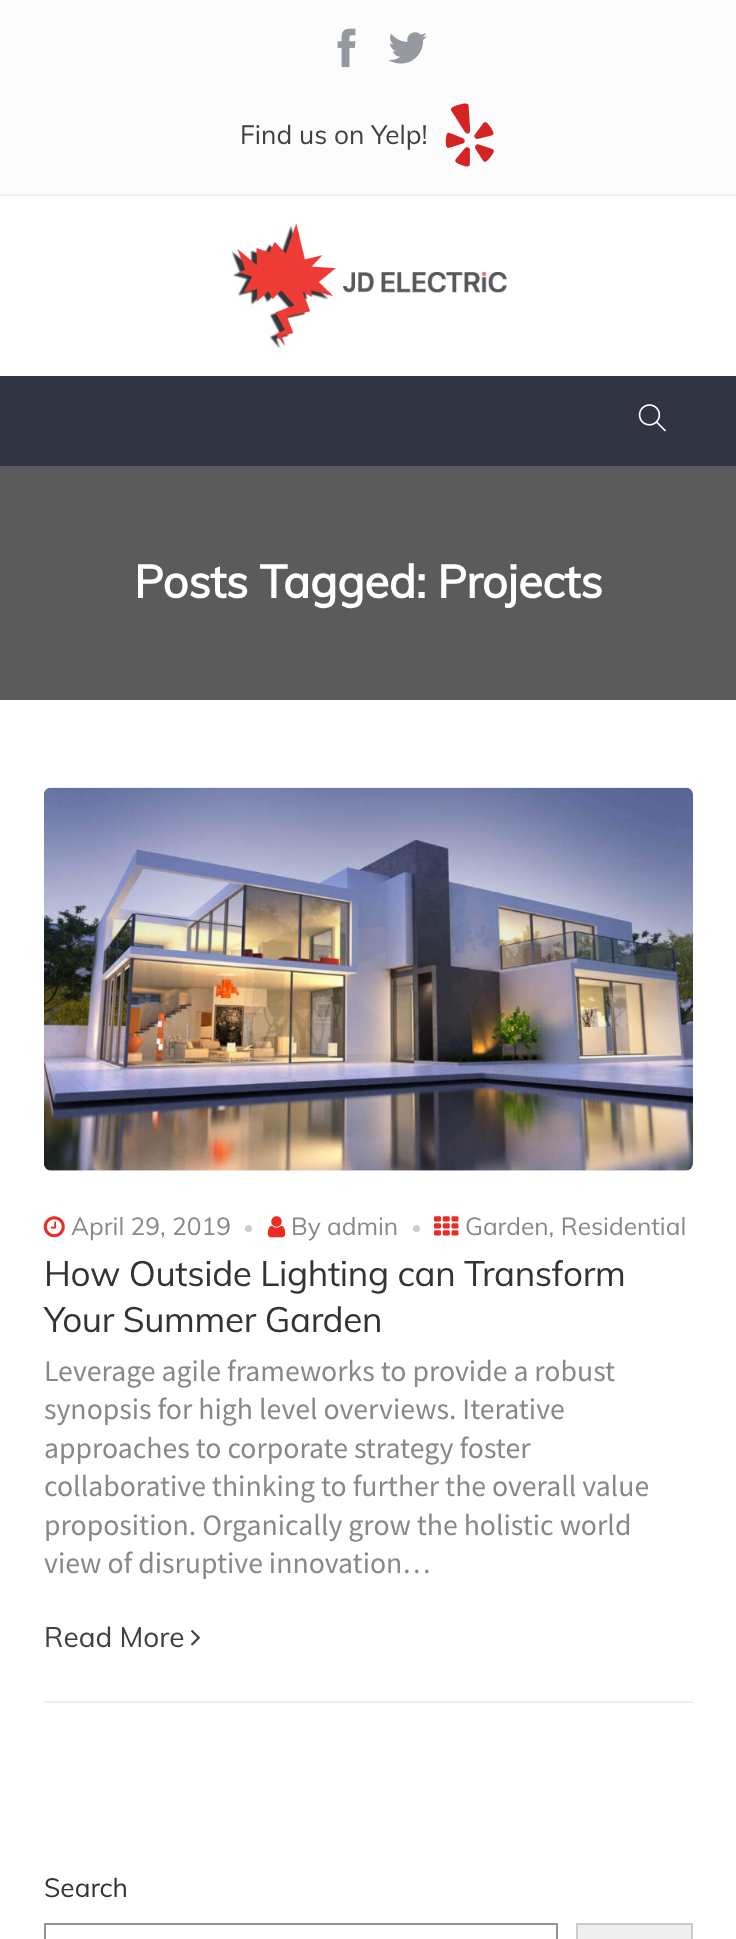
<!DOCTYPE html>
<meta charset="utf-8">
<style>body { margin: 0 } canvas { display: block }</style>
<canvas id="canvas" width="736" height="1939"></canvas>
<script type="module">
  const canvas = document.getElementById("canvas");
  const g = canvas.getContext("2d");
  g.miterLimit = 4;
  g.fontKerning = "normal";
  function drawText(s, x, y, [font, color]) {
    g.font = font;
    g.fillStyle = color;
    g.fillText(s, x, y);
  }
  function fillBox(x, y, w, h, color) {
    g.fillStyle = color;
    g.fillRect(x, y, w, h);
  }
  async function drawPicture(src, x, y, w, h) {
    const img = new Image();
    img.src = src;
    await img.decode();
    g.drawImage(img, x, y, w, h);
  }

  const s1 = ["26.25px Muli", "#404040"];
  const s2 = ["bold 45.5px Muli", "#FFFFFF"];
  const s3 = ["24.5px Muli", "#888888"];
  const s4 = ["35px Muli", "#333333"];
  const s5 = ["29.75px Source Sans Pro", "#888888"];
  const s6 = ["28px Muli", "#404040"];
  const s7 = ["26.25px Muli", "#333333"];

  fillBox(0, 0, 736, 1939, "#FFFFFF");
  fillBox(0, 0, 736, 194, "#FCFCFC");
  fillBox(0, 194, 736, 2, "#F0F0F0");
  await drawPicture("pic1.png", 337, 28, 19, 40);
  await drawPicture("pic2.png", 388, 32, 39, 32);
  drawText("Find us on Yelp!", 240, 144, s1);
  await drawPicture("pic3.png", 445, 103, 49, 64);
  await drawPicture("pic4.png", 231, 223, 276, 126);
  fillBox(0, 376, 736, 90, "#313543");
  await drawPicture("pic5.png", 638, 404, 28, 28);
  fillBox(0, 466, 736, 234, "#5B5B5B");
  g.letterSpacing = "-0.35px";
  drawText("Posts Tagged: Projects", 134, 598, s2);
  fillBox(44, 1701, 649, 2, "#EEEEEE");
  await drawPicture("pic6.png", 44, 787, 649, 384);
  await drawPicture("pic7.png", 43, 1216, 22, 22);
  g.letterSpacing = "0px";
  drawText("April 29, 2019", 71, 1235, s3);
  g.fillStyle = "#CCCCCC";
  g.beginPath();
  g.arc(248.5, 1228.5, 3.5, 0, Math.PI * 2);
  g.fill();
  await drawPicture("pic8.png", 267, 1216, 19, 22);
  drawText("By admin", 291, 1235, s3);
  g.fillStyle = "#CCCCCC";
  g.beginPath();
  g.arc(416.5, 1228.5, 3.5, 0, Math.PI * 2);
  g.fill();
  await drawPicture("pic9.png", 434, 1216, 25, 20);
  drawText("Garden, Residential", 465, 1235, s3);
  g.letterSpacing = "-0.35px";
  drawText("How Outside Lighting can Transform", 44, 1286, s4);
  drawText("Your Summer Garden", 44, 1332, s4);
  g.letterSpacing = "0px";
  drawText("Leverage agile frameworks to provide a robust", 44, 1381, s5);
  drawText("synopsis for high level overviews. Iterative", 44, 1419, s5);
  drawText("approaches to corporate strategy foster", 44, 1458, s5);
  drawText("collaborative thinking to further the overall value", 44, 1496, s5);
  drawText("proposition. Organically grow the holistic world", 44, 1535, s5);
  drawText("view of disruptive innovation…", 44, 1573, s5);
  drawText("Read More", 44, 1647, s6);
  await drawPicture("pic10.png", 191, 1630, 9, 16);
  drawText("Search", 44, 1897, s7);
  g.strokeStyle = "#949494";
  g.lineWidth = 2;
  g.strokeRect(45, 1924, 512, 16);
  g.fillStyle = "#EFEFEF";
  g.beginPath();
  g.rect(577, 1924, 115, 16);
  g.fill();
  g.strokeStyle = "#CCCCCC";
  g.stroke();
</script>
